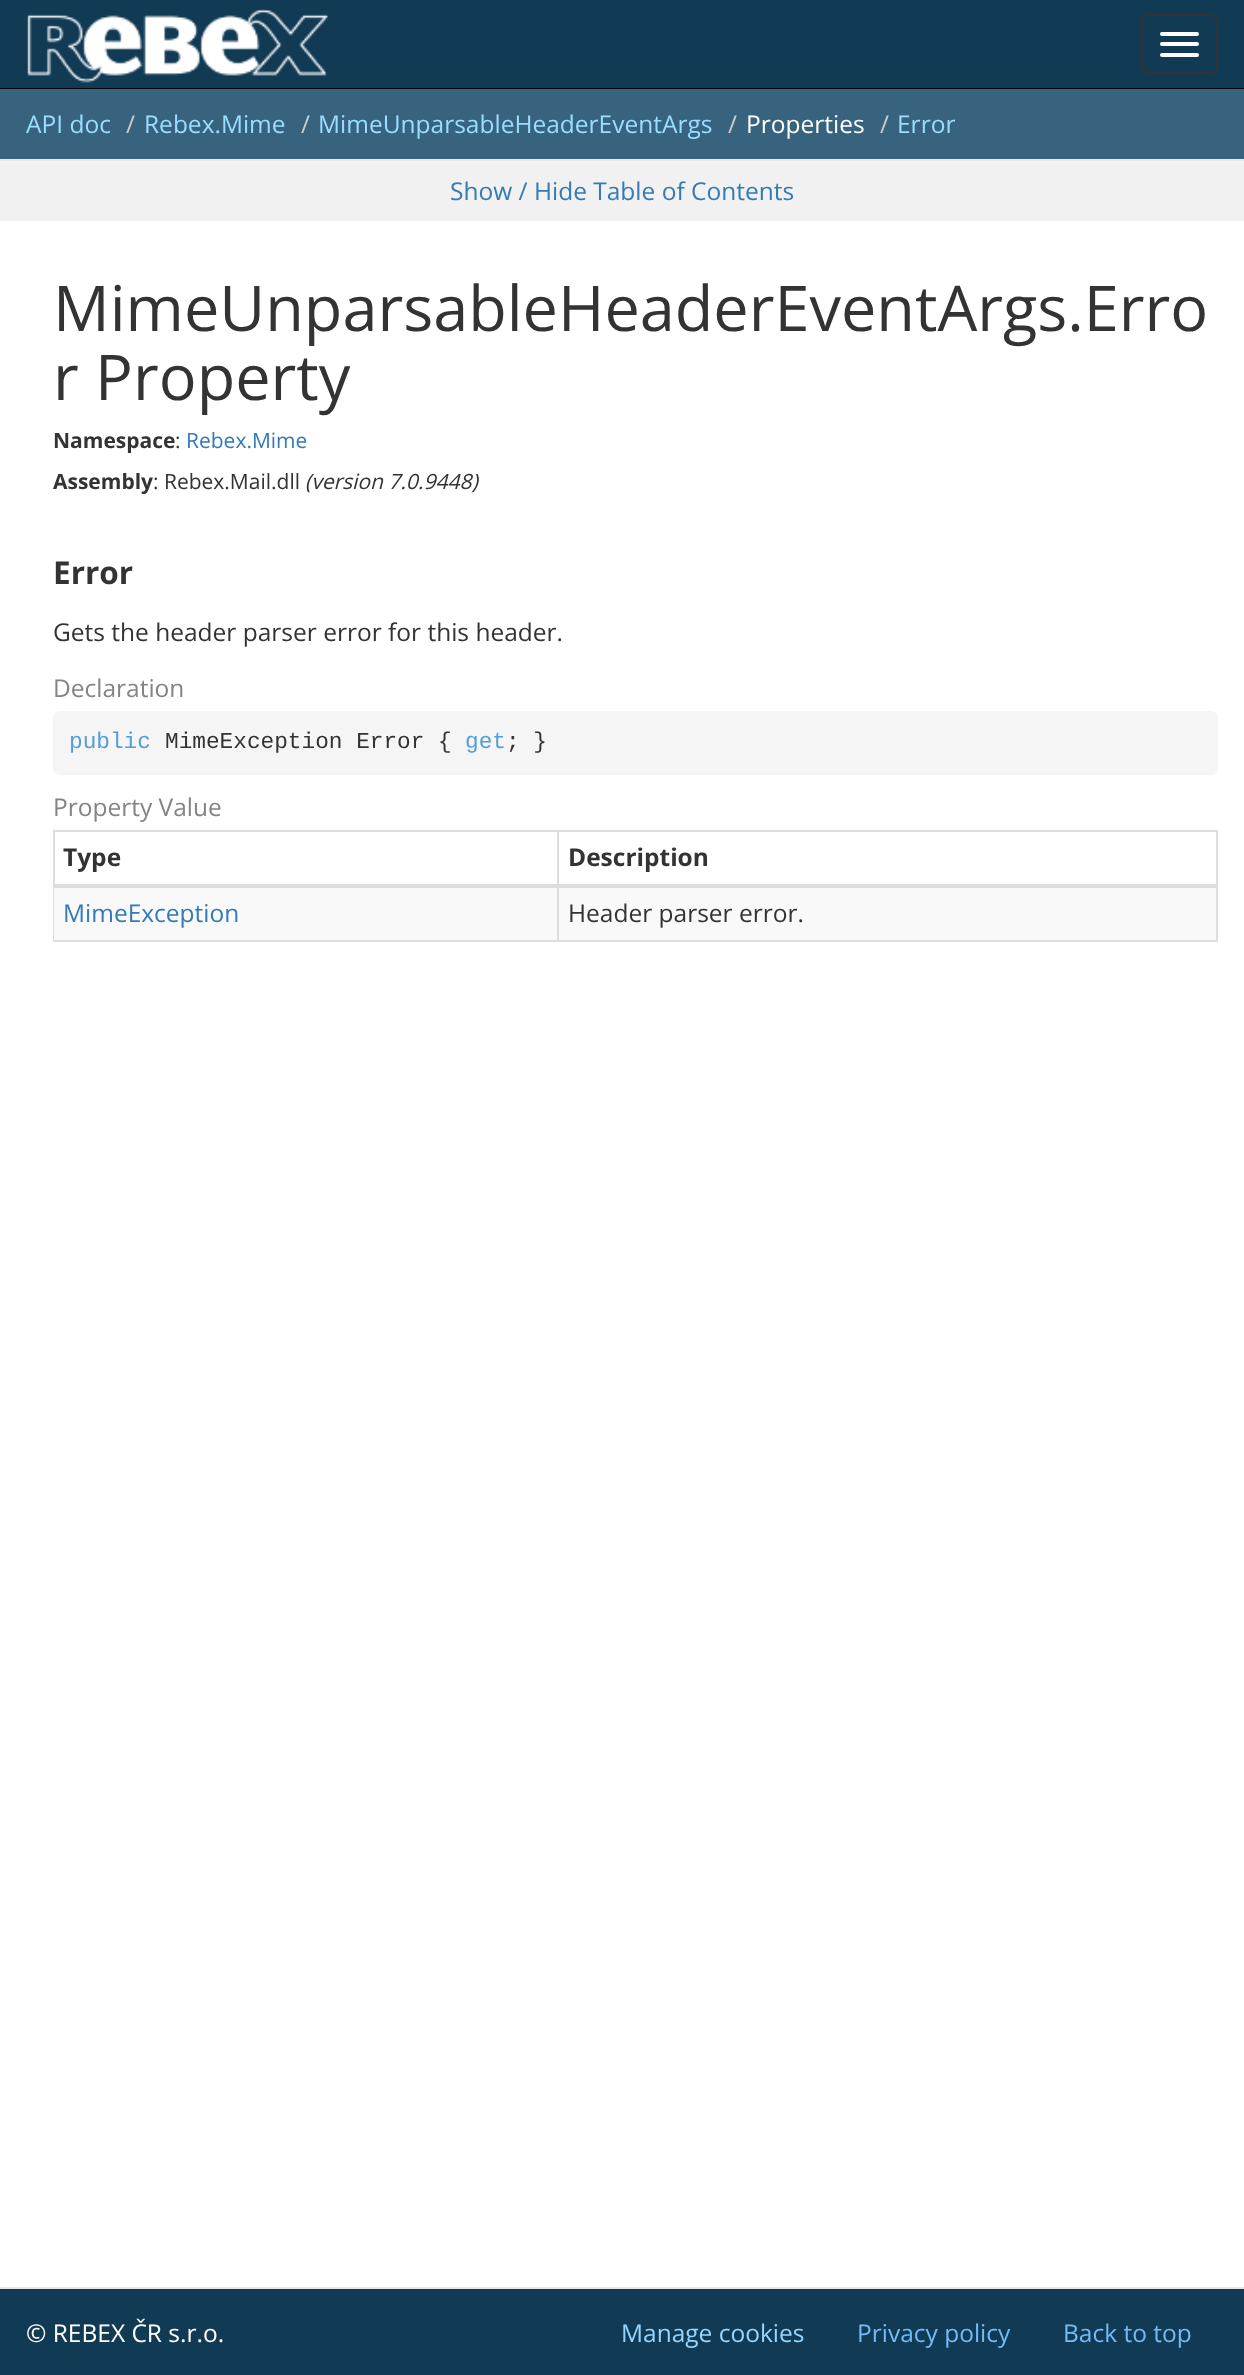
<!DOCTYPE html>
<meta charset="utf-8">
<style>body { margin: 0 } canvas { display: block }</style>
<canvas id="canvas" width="1244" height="2375"></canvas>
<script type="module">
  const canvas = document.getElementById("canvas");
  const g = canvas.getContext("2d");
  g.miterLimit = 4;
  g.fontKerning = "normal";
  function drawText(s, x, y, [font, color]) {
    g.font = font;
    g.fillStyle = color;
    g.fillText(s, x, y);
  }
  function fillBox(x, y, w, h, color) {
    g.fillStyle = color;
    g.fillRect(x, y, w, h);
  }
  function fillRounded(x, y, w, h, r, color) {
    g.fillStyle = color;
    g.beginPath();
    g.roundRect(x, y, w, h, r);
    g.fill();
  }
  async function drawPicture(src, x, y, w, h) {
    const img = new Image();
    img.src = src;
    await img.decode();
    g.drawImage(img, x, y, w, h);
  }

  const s1 = ["24.5px Open Sans", "#99DDFF"];
  const s2 = ["24.5px Open Sans", "#CCCCCC"];
  const s3 = ["24.5px Open Sans", "#FFFFFF"];
  const s4 = ["24.5px Open Sans", "#337AB7"];
  const s5 = ["63px Open Sans", "#333333"];
  const s6 = ["bold 21px Open Sans", "#333333"];
  const s7 = ["21px Open Sans", "#333333"];
  const s8 = ["21px Open Sans", "#337AB7"];
  const s9 = ["italic 21px Open Sans", "#333333"];
  const s10 = ["bold 31.5px Open Sans", "#333333"];
  const s11 = ["24.5px Open Sans", "#333333"];
  const s12 = ["24.5px Open Sans", "#848484"];
  const s13 = ["22.75px Liberation Mono", "#569CD6"];
  const s14 = ["22.75px Liberation Mono", "#333333"];
  const s15 = ["bold 24.5px Open Sans", "#333333"];
  const s16 = ["24.5px Open Sans", "#95D5FF"];
  const s17 = ["24.5px Open Sans", "#73BAF7"];

  fillBox(0, 0, 1244, 2375, "#FFFFFF");
  fillBox(0, 0, 1244, 88, "#113A54");
  fillBox(0, 88, 1244, 1, "#080808");
  await drawPicture("pic1.png", 27, 8, 301, 75);
  g.beginPath();
  g.roundRect(1142, 15, 75, 58, 6);
  g.strokeStyle = "#333333";
  g.lineWidth = 2;
  g.stroke();
  fillRounded(1160, 32, 39, 4, 2, "#FFFFFF");
  fillRounded(1160, 42, 39, 4, 2, "#FFFFFF");
  fillRounded(1160, 53, 39, 4, 2, "#FFFFFF");
  fillBox(0, 89, 1244, 70, "#38637F");
  fillBox(0, 159, 1244, 2, "#E7E7E7");
  drawText("API doc", 26, 133, s1);
  drawText("/", 126, 133, s2);
  drawText("Rebex.Mime", 144, 133, s1);
  drawText("/", 301, 133, s2);
  drawText("MimeUnparsableHeaderEventArgs", 318, 133, s1);
  drawText("/", 728, 133, s2);
  drawText("Properties", 746, 133, s3);
  drawText("/", 880, 133, s2);
  drawText("Error", 897, 133, s1);
  fillBox(0, 161, 1244, 60, "#F1F1F1");
  drawText("Show / Hide Table of Contents", 450, 200, s4);
  drawText("MimeUnparsableHeaderEventArgs.Erro", 53, 331, s5);
  drawText("r Property", 53, 400, s5);
  drawText("Namespace", 53, 448, s6);
  drawText(":", 175, 448, s7);
  drawText("Rebex.Mime", 186, 448, s8);
  drawText("Assembly", 53, 489, s6);
  drawText(": Rebex.Mail.dll", 153, 489, s7);
  drawText("(version 7.0.9448)", 305, 489, s9);
  drawText("Error", 53, 584, s10);
  drawText("Gets the header parser error for this header.", 53, 641, s11);
  drawText("Declaration", 53, 697, s12);
  fillRounded(53, 711, 1165, 64, 7, "#F5F5F5");
  drawText("public", 69, 748, s13);
  drawText("MimeException Error {", 165, 748, s14);
  drawText("get", 465, 748, s13);
  drawText("; }", 506, 748, s14);
  drawText("Property Value", 53, 816, s12);
  g.strokeStyle = "#DDDDDD";
  g.strokeRect(54, 831, 1163, 110);
  drawText("Type", 63, 866, s15);
  fillBox(54, 888, 1162, 52, "#F9F9F9");
  fillBox(557, 831, 2, 109, "#DDDDDD");
  fillBox(54, 884, 1162, 4, "#DDDDDD");
  drawText("Description", 568, 866, s15);
  drawText("MimeException", 63, 922, s4);
  drawText("Header parser error.", 568, 922, s11);
  fillBox(0, 2289, 1244, 86, "#113A54");
  fillBox(0, 2287, 1244, 2, "#E7E7E7");
  drawText("© REBEX ČR s.r.o.", 26, 2342, s3);
  drawText("Manage cookies", 621, 2342, s16);
  drawText("Privacy policy", 857, 2342, s17);
  drawText("Back to top", 1063, 2342, s17);
</script>
